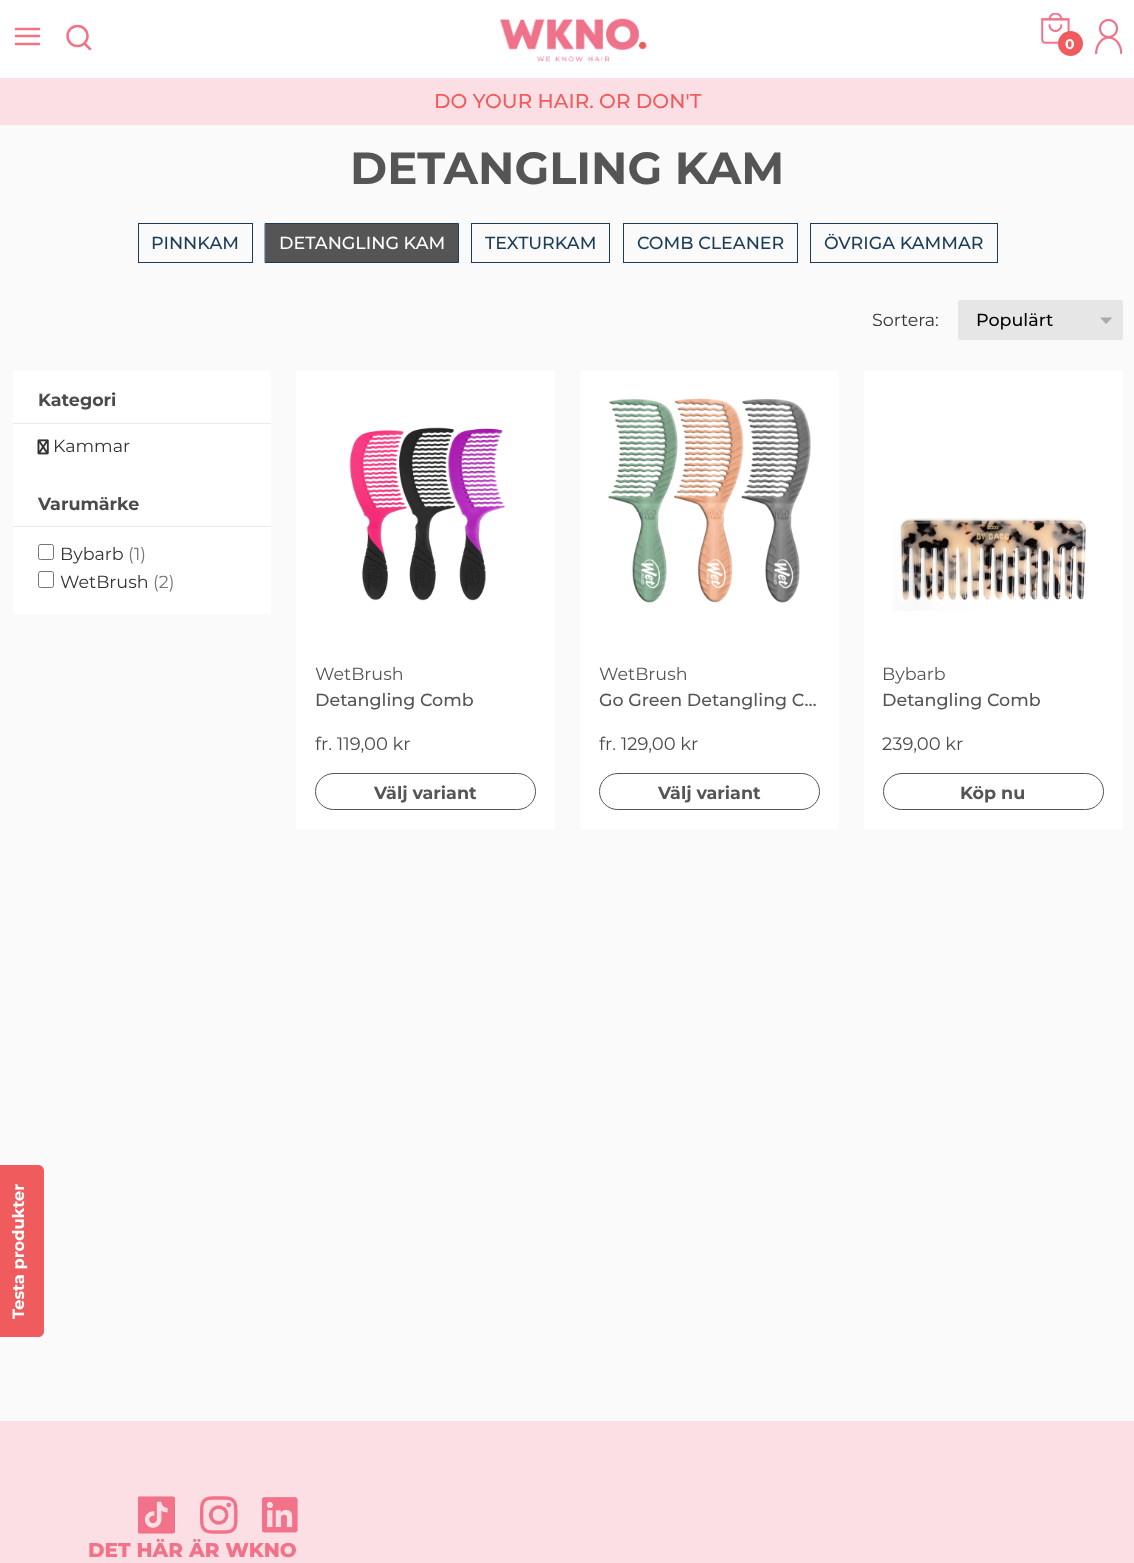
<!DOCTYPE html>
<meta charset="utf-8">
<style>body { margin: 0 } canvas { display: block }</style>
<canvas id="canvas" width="1134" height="1563"></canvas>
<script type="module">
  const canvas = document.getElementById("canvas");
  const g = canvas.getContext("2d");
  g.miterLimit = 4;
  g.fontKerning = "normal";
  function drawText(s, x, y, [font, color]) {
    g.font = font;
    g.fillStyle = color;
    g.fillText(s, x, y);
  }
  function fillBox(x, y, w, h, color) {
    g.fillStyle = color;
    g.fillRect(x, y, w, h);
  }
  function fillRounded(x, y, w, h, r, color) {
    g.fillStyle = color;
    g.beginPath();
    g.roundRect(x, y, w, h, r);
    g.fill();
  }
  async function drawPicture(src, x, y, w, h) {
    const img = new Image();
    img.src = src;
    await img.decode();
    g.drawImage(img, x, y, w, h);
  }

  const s1 = ["bold 14px Montserrat", "#FFFFFF"];
  const s2 = ["500 20px Montserrat", "#F05B5D"];
  const s3 = ["bold 45px Montserrat", "#555555"];
  const s4 = ["500 17.5px Montserrat", "#1A3C58"];
  const s5 = ["500 17.5px Montserrat", "#FFFFFF"];
  const s6 = ["17.5px Montserrat", "#333333"];
  const s7 = ["500 17.5px Montserrat", "#000000"];
  const s8 = ["bold 17.5px Montserrat", "#4B4B4B"];
  const s9 = ["17.5px Montserrat", "#777777"];
  const s10 = ["17.5px Montserrat", "#555555"];
  const s11 = ["500 17.5px Montserrat", "#555555"];
  const s12 = ["18px Montserrat", "#4B4B4B"];
  const s13 = ["bold 17.5px Montserrat", "#555555"];
  const s14 = ["800 20px Montserrat", "#F27289"];

  fillBox(0, 0, 1134, 1563, "#FAFAFA");
  fillBox(0, 0, 1134, 78, "#FFFFFF");
  g.beginPath();
  g.moveTo(16, 36);
  g.lineTo(39, 36);
  g.moveTo(16, 29);
  g.lineTo(39, 29);
  g.moveTo(16, 44);
  g.lineTo(39, 44);
  g.strokeStyle = "#F27289";
  g.lineWidth = 2.5;
  g.lineCap = "round";
  g.lineJoin = "round";
  g.stroke();
  g.beginPath();
  g.arc(77.5, 36, 10, 0, Math.PI * 2);
  g.stroke();
  g.beginPath();
  g.moveTo(90, 49);
  g.lineTo(84.5, 43.5);
  g.stroke();
  await drawPicture("pic1.png", 499, 18, 148, 44);
  await drawPicture("pic2.png", 1041, 13, 29, 31);
  g.fillStyle = "#F05B5D";
  g.beginPath();
  g.arc(1070.5, 43.5, 12.5, 0, Math.PI * 2);
  g.fill();
  drawText("0", 1065, 49, s1);
  await drawPicture("pic3.png", 1095, 18, 27, 36);
  fillBox(0, 78, 1134, 47, "#FBDFE4");
  drawText("DO YOUR HAIR. OR DON'T", 434, 108, s2);
  drawText("DETANGLING KAM", 350, 184, s3);
  g.strokeStyle = "#1A3C58";
  g.lineWidth = 1;
  g.lineJoin = "miter";
  g.strokeRect(138.5, 223.5, 114, 39);
  drawText("PINNKAM", 151, 249, s4);
  g.fillStyle = "#555555";
  g.beginPath();
  g.rect(265.5, 223.5, 193, 39);
  g.fill();
  g.stroke();
  drawText("DETANGLING KAM", 279, 249, s5);
  g.strokeRect(471.5, 223.5, 138, 39);
  drawText("TEXTURKAM", 485, 249, s4);
  g.strokeRect(623.5, 223.5, 174, 39);
  drawText("COMB CLEANER", 637, 249, s4);
  g.strokeRect(810.5, 223.5, 187, 39);
  drawText("ÖVRIGA KAMMAR", 824, 249, s4);
  drawText("Sortera:", 872, 326, s6);
  fillRounded(958, 300, 165, 40, 2.5, "#E6E6E6");
  drawText("Populärt", 976, 326, s7);
  g.fillStyle = "#AAAAAA";
  g.beginPath();
  g.moveTo(1100, 317.5);
  g.lineTo(1112.5, 317.5);
  g.lineTo(1106, 324);
  g.closePath();
  g.fill();
  fillBox(13, 371, 258, 243, "#FFFFFF");
  fillBox(13, 423, 258, 1, "#E9E9E9");
  drawText("Kategori", 38, 406, s8);
  await drawPicture("pic4.png", 37, 439, 12, 16);
  drawText("Kammar", 53, 452, s6);
  fillBox(13, 526, 258, 1, "#E9E9E9");
  drawText("Varumärke", 38, 510, s8);
  g.beginPath();
  g.roundRect(38.5, 544.5, 15, 15, 2);
  g.strokeStyle = "#767676";
  g.stroke();
  drawText("Bybarb", 60, 560, s6);
  drawText("(1)", 128, 560, s9);
  g.beginPath();
  g.roundRect(38.5, 571.5, 15, 16, 2);
  g.stroke();
  drawText("WetBrush", 60, 588, s6);
  drawText("(2)", 153, 588, s9);
  fillBox(296, 371, 259, 458, "#FFFFFF");
  await drawPicture("pic5.png", 349, 427, 157, 174);
  drawText("WetBrush", 315, 680, s10);
  drawText("Detangling Comb", 315, 706, s11);
  drawText("fr. 119,00 kr", 315, 750, s12);
  g.beginPath();
  g.roundRect(315.5, 773.5, 220, 36, 18);
  g.strokeStyle = "#555555";
  g.stroke();
  drawText("Välj variant", 374, 799, s13);
  fillBox(580, 371, 259, 458, "#FFFFFF");
  await drawPicture("pic6.png", 608, 398, 203, 205);
  drawText("WetBrush", 599, 680, s10);
  drawText("Go Green Detangling C…", 599, 706, s11);
  drawText("fr. 129,00 kr", 599, 750, s12);
  g.beginPath();
  g.roundRect(599.5, 773.5, 220, 36, 18);
  g.stroke();
  drawText("Välj variant", 658, 799, s13);
  fillBox(864, 371, 259, 458, "#FFFFFF");
  await drawPicture("pic7.png", 893, 518, 194, 93);
  drawText("Bybarb", 882, 680, s10);
  drawText("Detangling Comb", 882, 706, s11);
  drawText("239,00 kr", 882, 750, s12);
  g.beginPath();
  g.roundRect(883.5, 773.5, 220, 36, 18);
  g.stroke();
  drawText("Köp nu", 960, 799, s13);
  g.fillStyle = "#F05B5D";
  g.beginPath();
  g.moveTo(-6, 1337);
  g.lineTo(-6, 1165);
  g.lineTo(38, 1165);
  g.bezierCurveTo(41, 1165, 44, 1167, 44, 1171);
  g.lineTo(44, 1331);
  g.bezierCurveTo(44, 1335, 41, 1337, 38, 1337);
  g.closePath();
  g.fill();
  g.font = "bold 16.25px Montserrat";
  g.fillStyle = "#FFFFFF";
  g.save();
  g.translate(24, 1319);
  g.rotate(-90 * Math.PI / 180);
  g.fillText("Testa produkter", 0, 0);
  g.restore();
  fillBox(0, 1421, 1134, 142, "#FBDFE4");
  await drawPicture("pic8.png", 138, 1496, 37, 38);
  await drawPicture("pic9.png", 200, 1496, 38, 38);
  await drawPicture("pic10.png", 262, 1497, 36, 36);
  drawText("DET HÄR ÄR WKNO", 88, 1557, s14);
</script>
